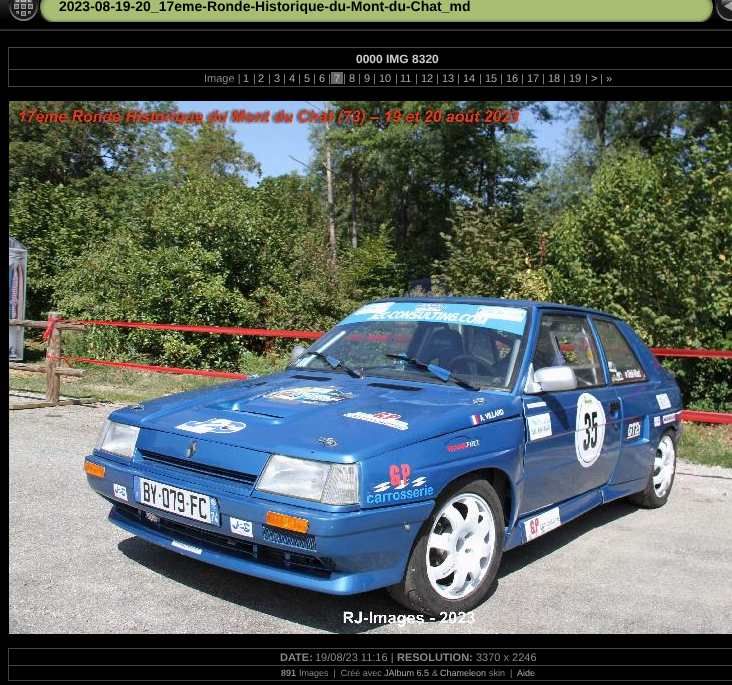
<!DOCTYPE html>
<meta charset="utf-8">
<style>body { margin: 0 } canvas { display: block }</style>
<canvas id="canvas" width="732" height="685"></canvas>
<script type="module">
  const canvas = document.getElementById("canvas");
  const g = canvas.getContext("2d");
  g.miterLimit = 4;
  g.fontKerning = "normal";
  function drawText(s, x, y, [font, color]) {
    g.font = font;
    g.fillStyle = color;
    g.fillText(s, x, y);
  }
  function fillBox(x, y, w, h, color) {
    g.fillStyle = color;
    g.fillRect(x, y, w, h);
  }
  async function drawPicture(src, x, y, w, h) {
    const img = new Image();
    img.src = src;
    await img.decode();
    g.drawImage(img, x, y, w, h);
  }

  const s1 = ["bold 14px Liberation Sans", "#000000"];
  const s2 = ["bold 12px Liberation Sans", "#CCCCCC"];
  const s3 = ["11px Liberation Sans", "#888888"];
  const s4 = ["11px Liberation Sans", "#AAAAAA"];
  const s5 = ["bold 11px Liberation Sans", "#AAAAAA"];
  const s6 = ["bold 11px Liberation Sans", "#888888"];
  const s7 = ["bold 9px Liberation Sans", "#888888"];
  const s8 = ["9px Liberation Sans", "#888888"];
  const s9 = ["9px Liberation Sans", "#AAAAAA"];

  fillBox(0, 0, 732, 685, "#000000");
  await drawPicture("pic1.png", 0, 0, 732, 31);
  await drawPicture("pic2.png", 9, 0, 29, 21);
  await drawPicture("pic3.png", 39, 0, 20, 22);
  await drawPicture("pic4.png", 59, 0, 636, 22);
  drawText("2023-08-19-20_17eme-Ronde-Historique-du-Mont-du-Chat_md", 59, 11, s1);
  await drawPicture("pic5.png", 695, 0, 20, 22);
  await drawPicture("pic6.png", 716, 0, 16, 21);
  fillBox(8, 47, 724, 1, "#444444");
  fillBox(8, 86, 724, 1, "#444444");
  fillBox(8, 47, 1, 40, "#444444");
  drawText("0000 IMG 8320", 356, 63, s2);
  fillBox(8, 69, 724, 1, "#444444");
  drawText("Image |", 204, 82, s3);
  drawText("1", 243, 82, s4);
  drawText("|", 253, 82, s3);
  drawText("2", 258, 82, s4);
  drawText("|", 268, 82, s3);
  drawText("3", 274, 82, s4);
  drawText("|", 283, 82, s3);
  drawText("4", 289, 82, s4);
  drawText("|", 298, 82, s3);
  drawText("5", 304, 82, s4);
  drawText("|", 313, 82, s3);
  drawText("6", 319, 82, s4);
  drawText("|", 328, 82, s3);
  fillBox(331, 72, 12, 12, "#666666");
  drawText("7", 334, 82, s5);
  drawText("|", 343, 82, s3);
  drawText("8", 349, 82, s4);
  drawText("|", 358, 82, s3);
  drawText("9", 364, 82, s4);
  drawText("|", 373, 82, s3);
  drawText("10", 379, 82, s4);
  drawText("|", 395, 82, s3);
  drawText("11", 400, 82, s4);
  drawText("|", 415, 82, s3);
  drawText("12", 421, 82, s4);
  drawText("|", 436, 82, s3);
  drawText("13", 442, 82, s4);
  drawText("|", 457, 82, s3);
  drawText("14", 463, 82, s4);
  drawText("|", 479, 82, s3);
  drawText("15", 485, 82, s4);
  drawText("|", 500, 82, s3);
  drawText("16", 506, 82, s4);
  drawText("|", 521, 82, s3);
  drawText("17", 527, 82, s4);
  drawText("|", 542, 82, s3);
  drawText("18", 548, 82, s4);
  drawText("|", 563, 82, s3);
  drawText("19", 569, 82, s4);
  drawText("|", 585, 82, s3);
  drawText(">", 591, 82, s4);
  drawText("|", 600, 82, s3);
  drawText("»", 606, 82, s4);
  await drawPicture("pic7.png", 9, 101, 723, 533);
  fillBox(8, 648, 724, 1, "#444444");
  fillBox(8, 680, 724, 1, "#444444");
  fillBox(8, 648, 1, 33, "#444444");
  drawText("DATE:", 280, 661, s6);
  drawText("19/08/23 11:16 |", 315, 661, s3);
  drawText("RESOLUTION:", 397, 661, s6);
  drawText("3370 x 2246", 476, 661, s3);
  fillBox(8, 665, 724, 1, "#444444");
  drawText("891", 281, 676, s7);
  drawText("Images  |  Créé avec", 299, 676, s8);
  drawText("JAlbum 6.5", 384, 676, s9);
  drawText("&", 432, 676, s8);
  drawText("Chameleon", 440, 676, s9);
  drawText("skin  |", 489, 676, s8);
  drawText("Aide", 517, 676, s9);
</script>
